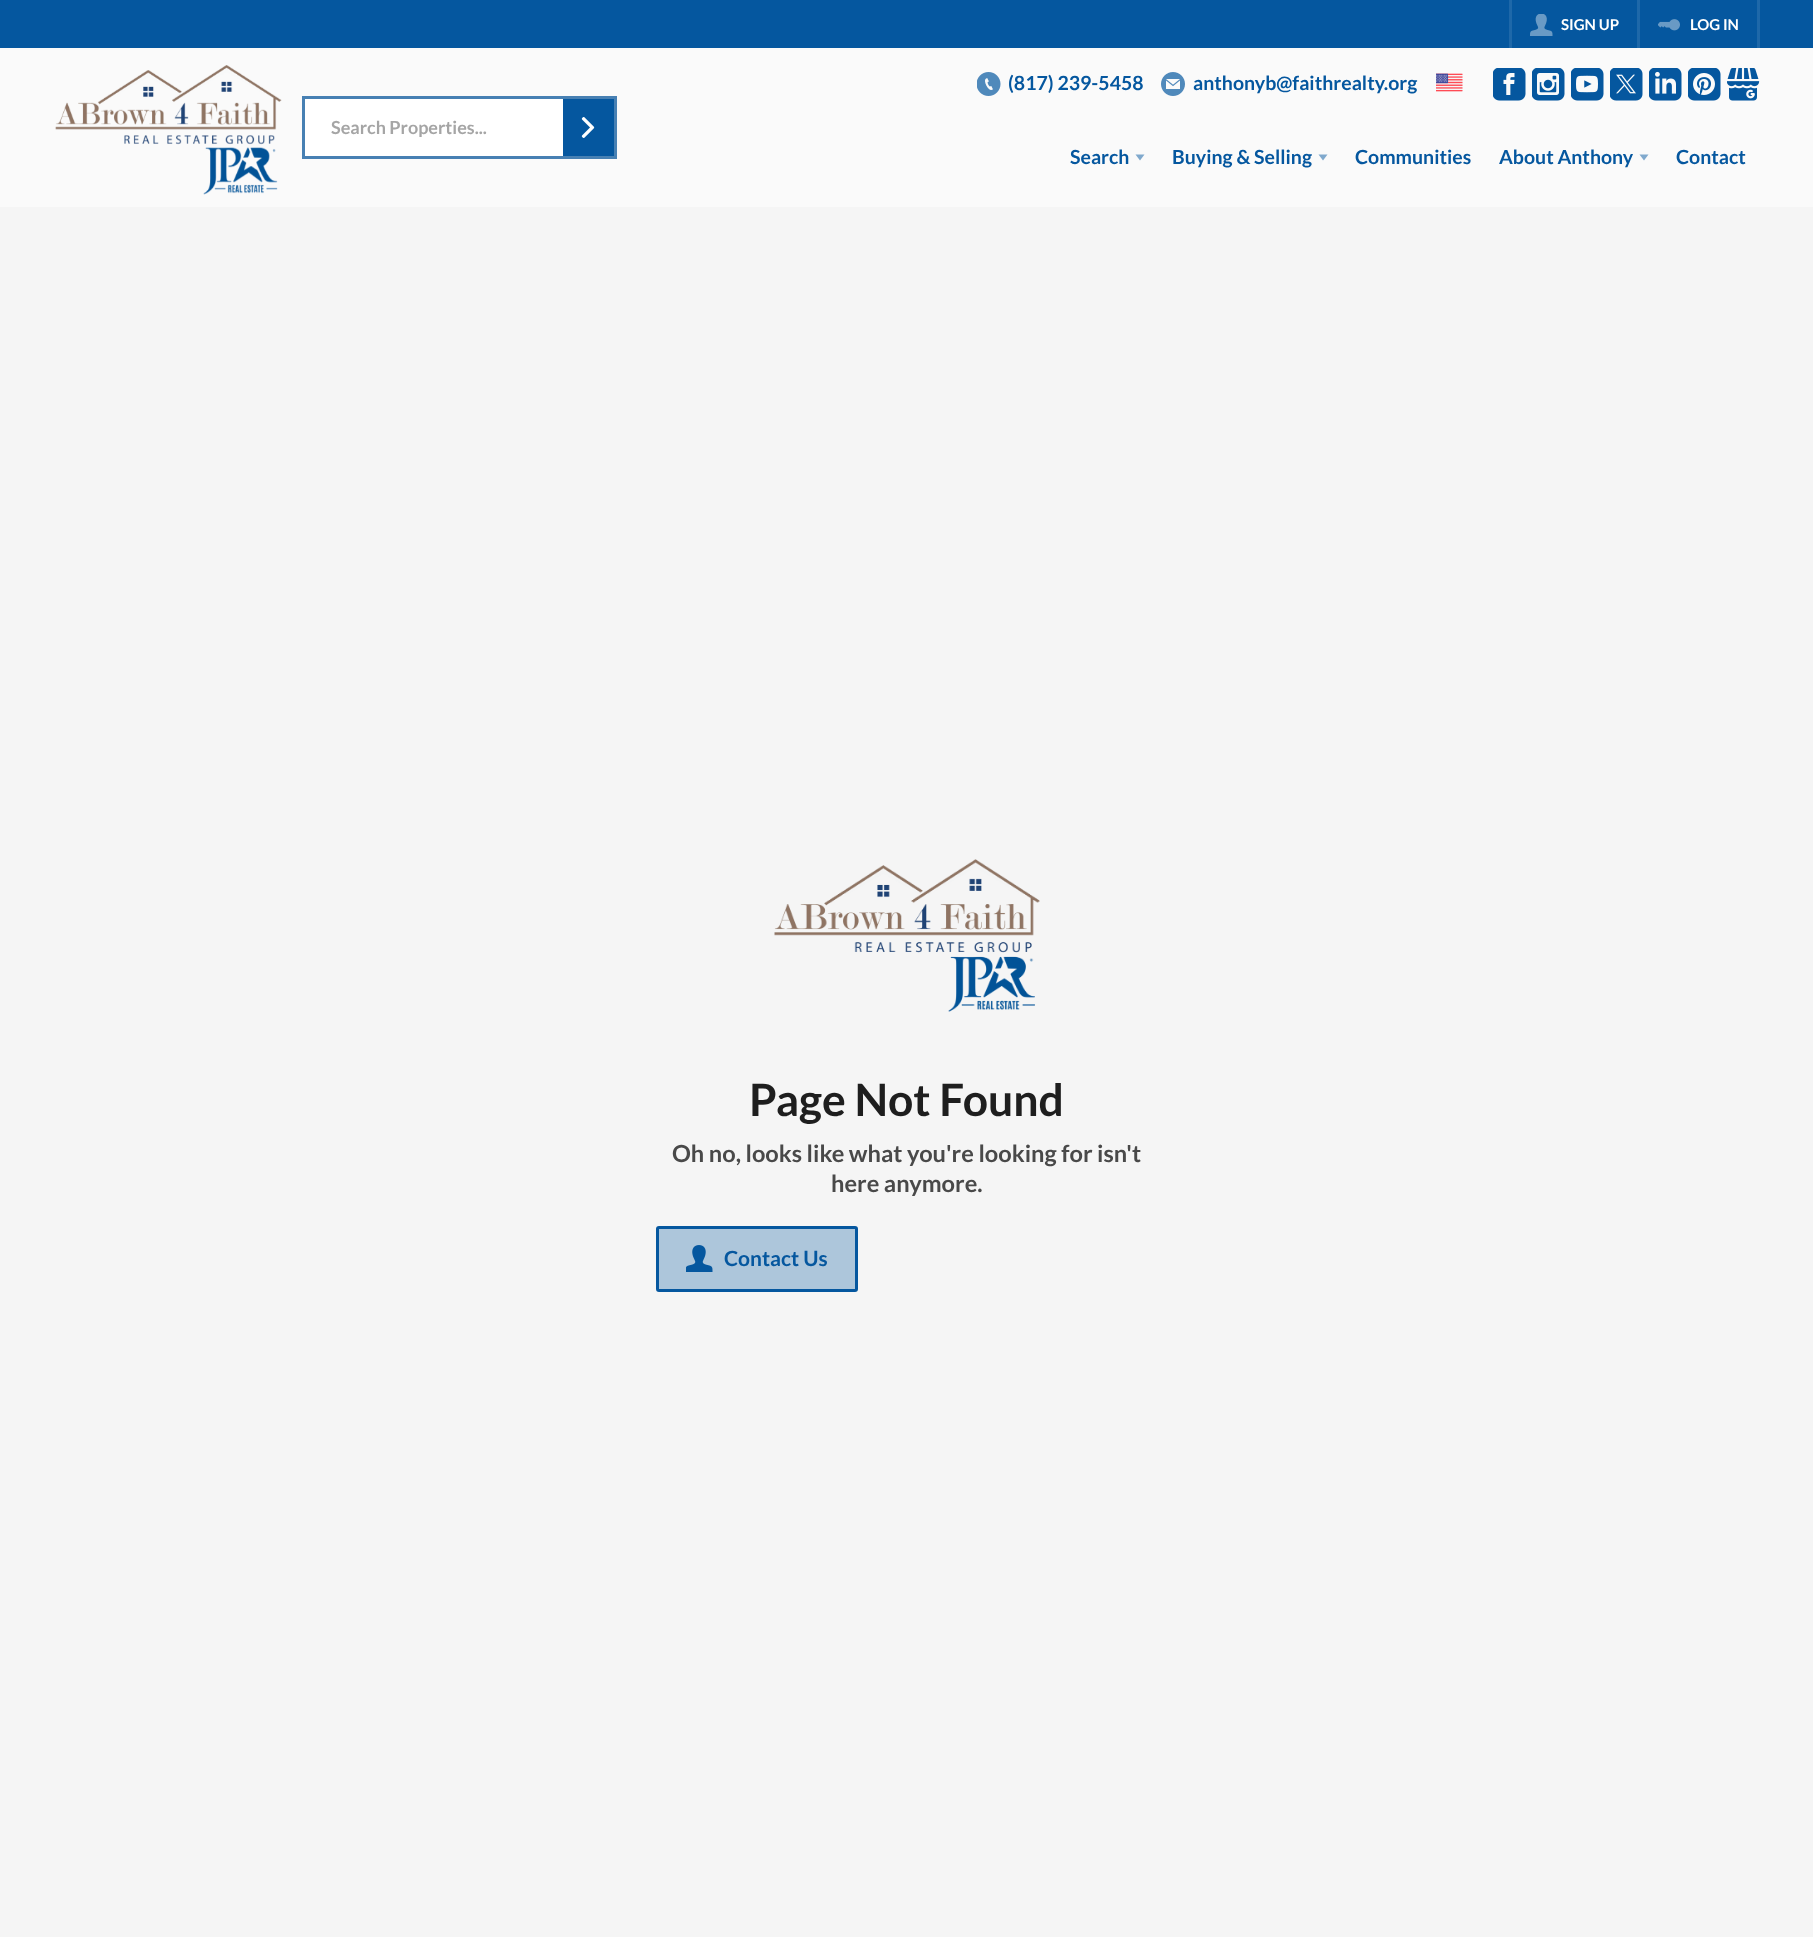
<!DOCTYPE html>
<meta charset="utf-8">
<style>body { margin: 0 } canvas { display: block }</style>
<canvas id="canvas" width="1813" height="1937"></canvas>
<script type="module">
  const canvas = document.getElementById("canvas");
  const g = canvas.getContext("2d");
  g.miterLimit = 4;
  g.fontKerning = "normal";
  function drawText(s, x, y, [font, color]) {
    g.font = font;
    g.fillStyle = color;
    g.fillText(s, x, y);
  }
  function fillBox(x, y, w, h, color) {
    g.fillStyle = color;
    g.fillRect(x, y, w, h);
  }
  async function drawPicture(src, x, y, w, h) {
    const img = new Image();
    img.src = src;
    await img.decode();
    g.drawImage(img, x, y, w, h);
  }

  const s1 = ["bold 15px Lato", "#FFFFFF"];
  const s2 = ["bold 18px Lato", "#A5A5A5"];
  const s3 = ["bold 19.5px Lato", "#05579F"];
  const s4 = ["bold 44.5px Lato", "#1E1E1E"];
  const s5 = ["bold 23.6px Lato", "#494949"];
  const s6 = ["bold 21px Lato", "#05579F"];

  fillBox(0, 0, 1813, 1937, "#FAFAFA");
  fillBox(0, 0, 1813, 48, "#05579F");
  fillBox(1757, 0, 3, 48, "#1E68A9");
  fillBox(1509, 0, 3, 48, "#1E68A9");
  await drawPicture("pic1.png", 1530, 14, 23, 22);
  drawText("SIGN UP", 1561, 30, s1);
  fillBox(1637, 0, 3, 48, "#1E68A9");
  await drawPicture("pic2.png", 1658, 19, 22, 12);
  drawText("LOG IN", 1690, 30, s1);
  await drawPicture("pic3.png", 55, 65, 227, 130);
  g.strokeStyle = "#4780B3";
  g.lineWidth = 3;
  g.strokeRect(303.5, 97.5, 312, 60);
  fillBox(305, 99, 258, 57, "#FFFFFF");
  drawText("Search Properties...", 331, 134, s2);
  fillBox(563, 99, 51, 57, "#05579F");
  await drawPicture("pic4.png", 581, 117, 14, 21);
  await drawPicture("pic5.png", 977, 72, 24, 24);
  drawText("(817) 239-5458", 1008, 90, s3);
  await drawPicture("pic6.png", 1161, 72, 24, 24);
  drawText("anthonyb@faithrealty.org", 1193, 90, s3);
  await drawPicture("pic7.png", 1436, 73, 27, 19);
  await drawPicture("pic8.png", 1493, 68, 33, 33);
  await drawPicture("pic9.png", 1532, 68, 33, 33);
  await drawPicture("pic10.png", 1571, 68, 33, 33);
  await drawPicture("pic11.png", 1610, 68, 33, 33);
  await drawPicture("pic12.png", 1649, 68, 33, 33);
  await drawPicture("pic13.png", 1688, 68, 33, 33);
  await drawPicture("pic14.png", 1727, 68, 33, 33);
  drawText("Search", 1070, 164, s3);
  g.fillStyle = "#80A9CD";
  g.beginPath();
  g.moveTo(1135.5, 154.5);
  g.lineTo(1144.5, 154.5);
  g.lineTo(1140, 160.5);
  g.closePath();
  g.fill();
  drawText("Buying & Selling", 1172, 164, s3);
  g.fillStyle = "#80A9CD";
  g.beginPath();
  g.moveTo(1318.5, 154.5);
  g.lineTo(1327.5, 154.5);
  g.lineTo(1323, 160.5);
  g.closePath();
  g.fill();
  drawText("Communities", 1355, 164, s3);
  drawText("About Anthony", 1499, 164, s3);
  g.fillStyle = "#80A9CD";
  g.beginPath();
  g.moveTo(1639.5, 154.5);
  g.lineTo(1648.5, 154.5);
  g.lineTo(1644, 160.5);
  g.closePath();
  g.fill();
  drawText("Contact", 1676, 164, s3);
  fillBox(0, 207, 1813, 1730, "#F5F5F5");
  await drawPicture("pic15.png", 774, 859, 266, 153);
  drawText("Page Not Found", 749, 1116, s4);
  drawText("Oh no, looks like what you're looking for isn't", 672, 1162, s5);
  drawText("here anymore.", 831, 1192, s5);
  g.fillStyle = "#ADC6DB";
  g.beginPath();
  g.roundRect(657.5, 1227.5, 199, 63, 1.5);
  g.fill();
  g.strokeStyle = "#05579F";
  g.stroke();
  await drawPicture("pic16.png", 686, 1245, 27, 27);
  drawText("Contact Us", 724, 1266, s6);
</script>
